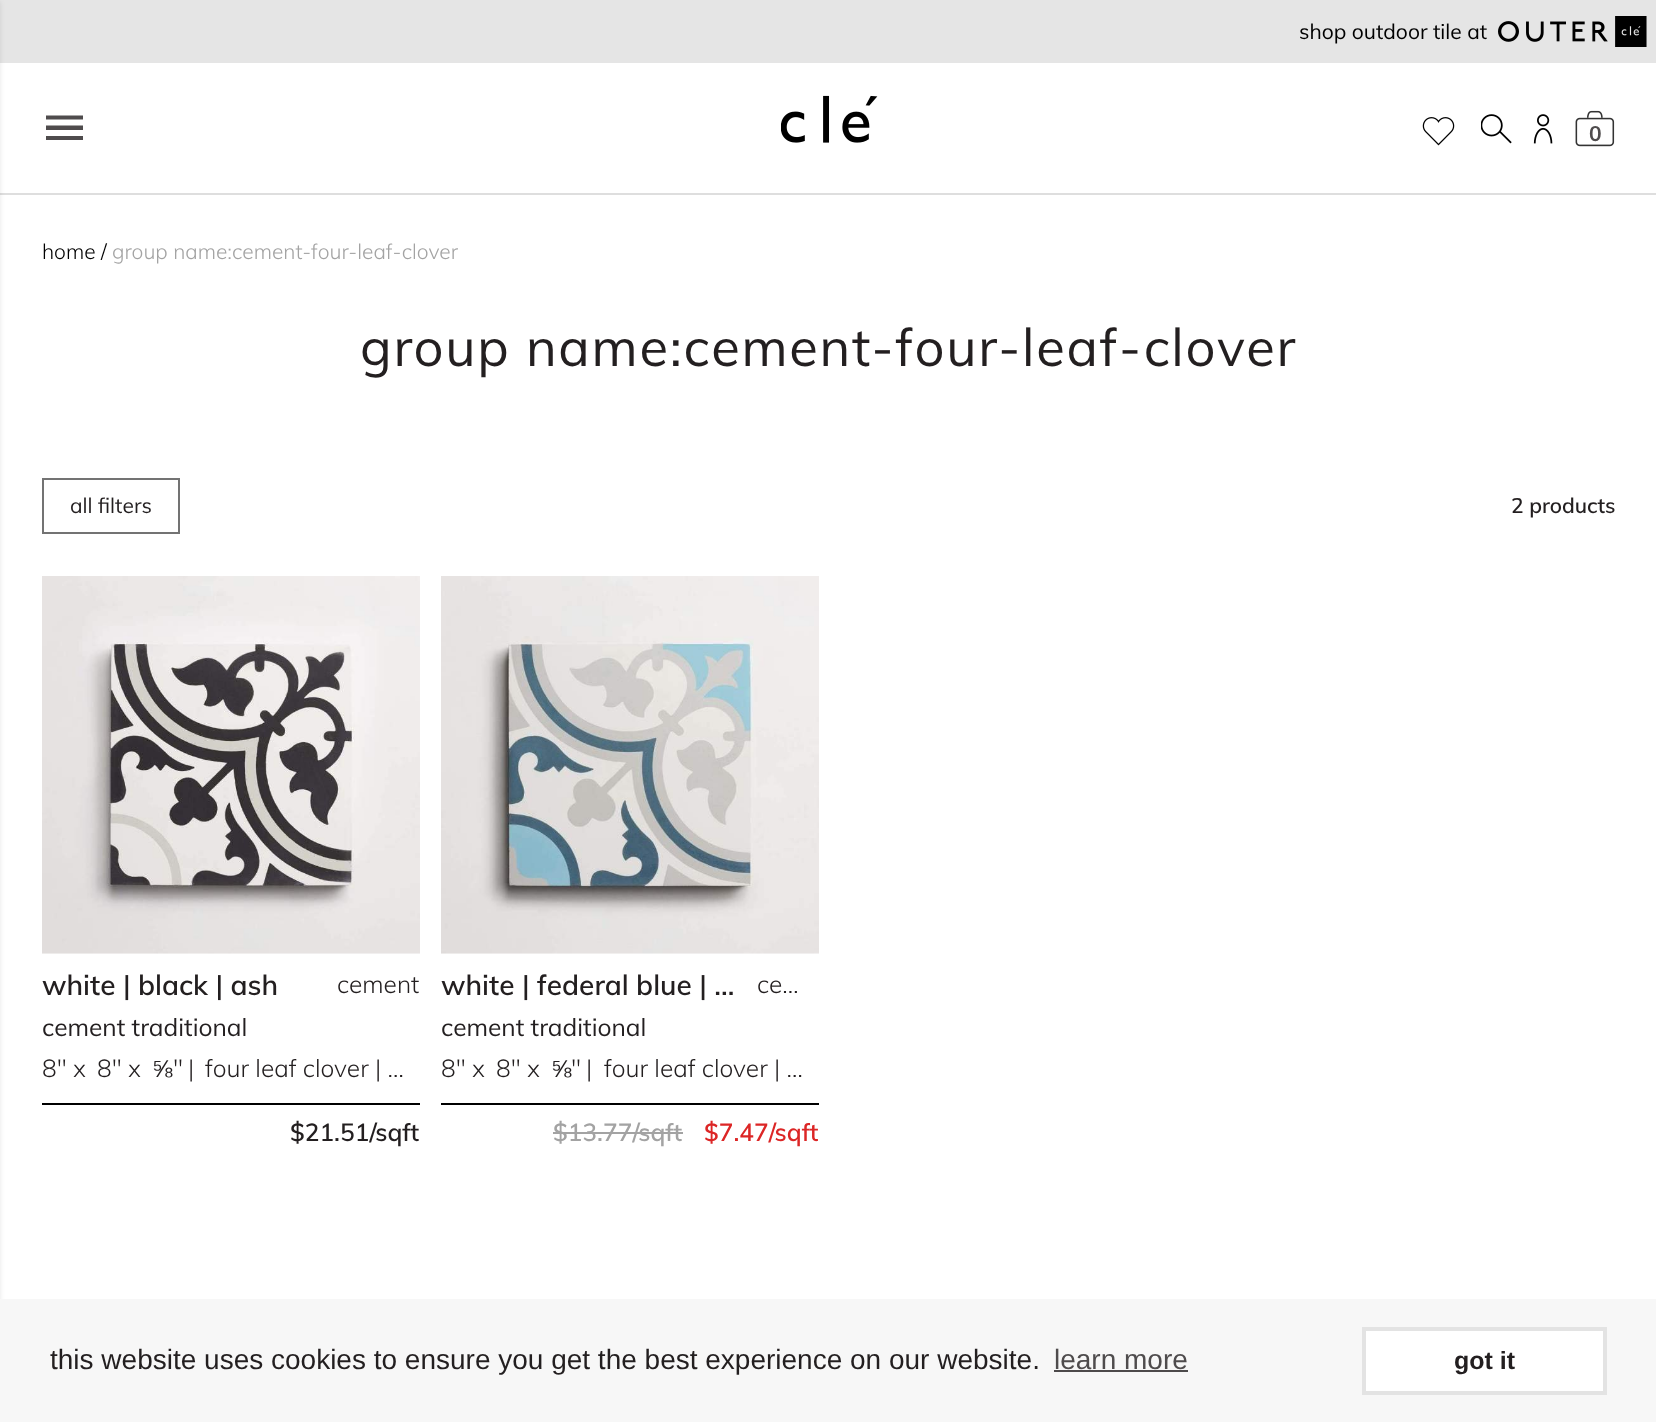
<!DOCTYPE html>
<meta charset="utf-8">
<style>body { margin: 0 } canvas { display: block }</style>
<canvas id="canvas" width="1656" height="1422"></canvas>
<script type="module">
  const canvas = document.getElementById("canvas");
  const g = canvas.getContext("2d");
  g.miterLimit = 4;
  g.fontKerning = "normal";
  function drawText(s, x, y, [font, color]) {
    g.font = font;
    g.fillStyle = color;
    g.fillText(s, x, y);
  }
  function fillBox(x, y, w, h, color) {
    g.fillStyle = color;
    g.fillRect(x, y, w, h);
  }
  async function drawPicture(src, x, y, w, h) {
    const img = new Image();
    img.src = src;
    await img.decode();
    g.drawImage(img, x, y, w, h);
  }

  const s1 = ["21px Muli", "#000000"];
  const s2 = ["bold 21px Muli", "#4F4C4D"];
  const s3 = ["300 21px Muli", "#000000"];
  const s4 = ["300 21px Muli", "#A3A3A3"];
  const s5 = ["52.5px Muli", "#231F20"];
  const s6 = ["21px Muli", "#231F20"];
  const s7 = ["600 21px Muli", "#231F20"];
  const s8 = ["600 28px Muli", "#231F20"];
  const s9 = ["300 24.5px Muli", "#231F20"];
  const s10 = ["24.5px Muli", "#231F20"];
  const s11 = ["24.5px Liberation Sans", "#231F20"];
  const s12 = ["600 24.5px Muli", "#231F20"];
  const s13 = ["600 24.5px Muli", "#A3A3A3"];
  const s14 = ["600 24.5px Muli", "#DC2626"];
  const s15 = ["28px Liberation Sans", "#231F20"];
  const s16 = ["28px Liberation Sans", "#4F4C4D"];
  const s17 = ["bold 25px Liberation Sans", "#231F20"];

  fillBox(0, 0, 1656, 1422, "#FFFFFF");
  fillBox(0, 0, 1656, 63, "#E5E5E5");
  fillBox(0, 193, 1656, 2, "#DEDEDE");
  g.fillStyle = "rgba(0, 0, 0, 0.1)";
  g.filter = "blur(2.5px)";
  g.beginPath();
  g.rect(-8, 2, 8, 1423);
  g.fill();
  g.filter = "none";
  drawText("shop outdoor tile at", 1299, 39, s1);
  await drawPicture("pic1.png", 1498, 16, 149, 31);
  g.fillStyle = "#4F4C4D";
  g.beginPath();
  g.moveTo(46, 140);
  g.lineTo(83, 140);
  g.lineTo(83, 136);
  g.lineTo(46, 136);
  g.closePath();
  g.moveTo(46, 130);
  g.lineTo(83, 130);
  g.lineTo(83, 125.5);
  g.lineTo(46, 125.5);
  g.closePath();
  g.moveTo(46, 115.5);
  g.lineTo(46, 119.5);
  g.lineTo(83, 119.5);
  g.lineTo(83, 115.5);
  g.closePath();
  g.fill();
  await drawPicture("pic2.png", 781, 95, 97, 48);
  await drawPicture("pic3.png", 1422, 117, 33, 29);
  await drawPicture("pic4.png", 1481, 114, 31, 30);
  await drawPicture("pic5.png", 1533, 114, 20, 30);
  await drawPicture("pic6.png", 1575, 110, 40, 37);
  drawText("0", 1589, 141, s2);
  drawText("home", 42, 259, s3);
  drawText("/", 101, 259, s3);
  drawText("group name:cement-four-leaf-clover", 112, 259, s4);
  g.letterSpacing = "1.7px";
  drawText("group name:cement-four-leaf-clover", 360, 366, s5);
  g.strokeStyle = "#737373";
  g.lineWidth = 2;
  g.strokeRect(43, 479, 136, 54);
  g.letterSpacing = "0px";
  drawText("all filters", 70, 513, s6);
  drawText("2 products", 1511, 513, s7);
  await drawPicture("pic7.png", 42, 576, 378, 378);
  drawText("white | black | ash", 42, 995, s8);
  drawText("cement", 337, 993, s9);
  drawText("cement traditional", 42, 1036, s10);
  drawText("8\" x", 42, 1077, s9);
  drawText("8\" x", 97, 1077, s9);
  drawText("⅝", 152, 1077, s11);
  drawText("\" |", 173, 1077, s9);
  drawText("four leaf clover | …", 205, 1077, s9);
  fillBox(42, 1103, 378, 2, "#000000");
  drawText("$21.51/sqft", 290, 1141, s12);
  await drawPicture("pic8.png", 441, 576, 378, 378);
  drawText("white | federal blue | …", 441, 995, s8);
  drawText("ce…", 757, 993, s9);
  drawText("cement traditional", 441, 1036, s10);
  drawText("8\" x", 441, 1077, s9);
  drawText("8\" x", 496, 1077, s9);
  drawText("⅝", 551, 1077, s11);
  drawText("\" |", 571, 1077, s9);
  drawText("four leaf clover | …", 604, 1077, s9);
  fillBox(441, 1103, 378, 2, "#000000");
  drawText("$13.77/sqft", 553, 1141, s13);
  fillBox(553, 1132, 130, 2, "#A3A3A3");
  drawText("$7.47/sqft", 704, 1141, s14);
  fillBox(0, 1299, 1656, 123, "#F7F7F7");
  drawText("this website uses cookies to ensure you get the best experience on our website.", 50, 1369, s15);
  drawText("learn more", 1054, 1369, s16);
  fillBox(1054, 1370, 134, 2, "#4D4A4B");
  g.fillStyle = "#FFFFFF";
  g.beginPath();
  g.rect(1364, 1329, 241, 64);
  g.fill();
  g.strokeStyle = "#E3E3E3";
  g.lineWidth = 4;
  g.stroke();
  drawText("got it", 1454, 1369, s17);
</script>
